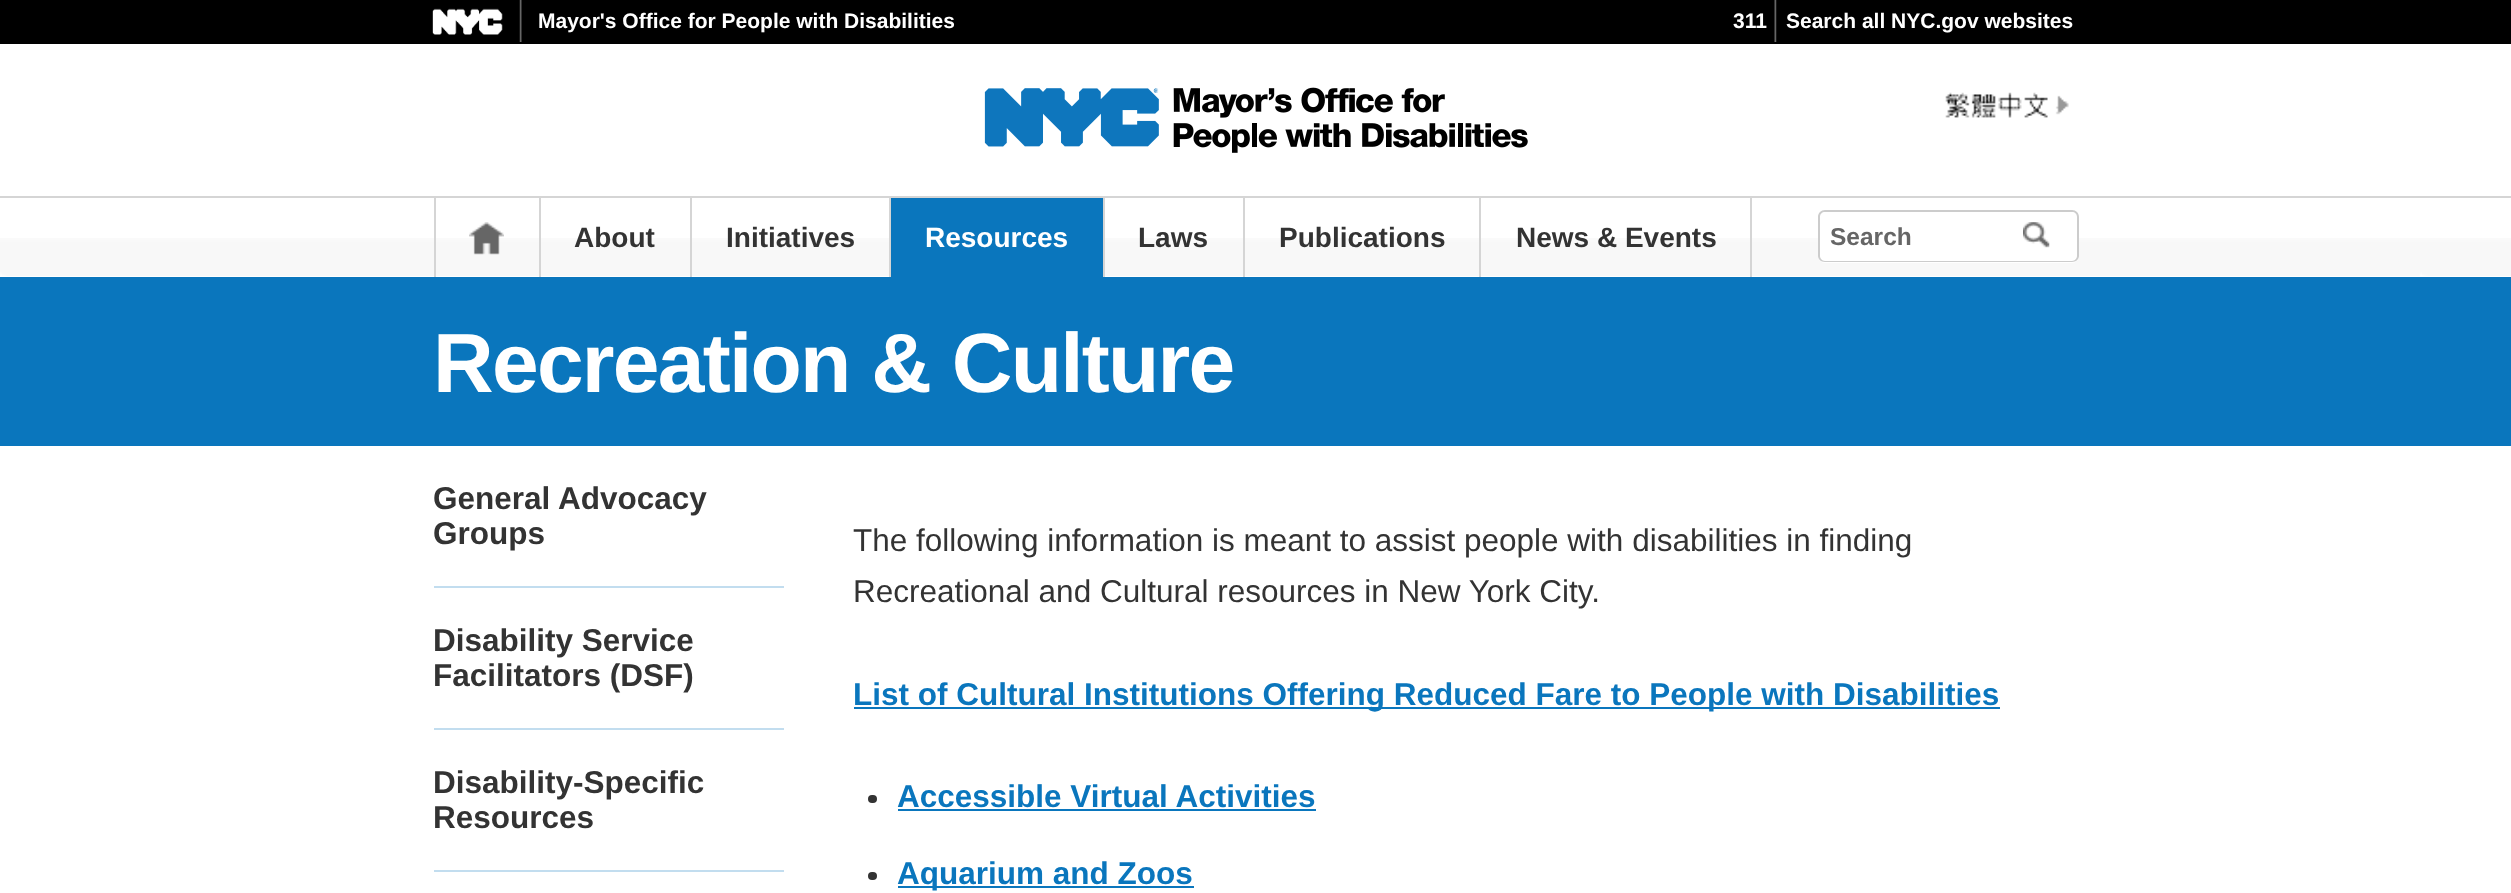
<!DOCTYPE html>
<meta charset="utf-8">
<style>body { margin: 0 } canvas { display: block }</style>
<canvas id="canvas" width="2511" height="893"></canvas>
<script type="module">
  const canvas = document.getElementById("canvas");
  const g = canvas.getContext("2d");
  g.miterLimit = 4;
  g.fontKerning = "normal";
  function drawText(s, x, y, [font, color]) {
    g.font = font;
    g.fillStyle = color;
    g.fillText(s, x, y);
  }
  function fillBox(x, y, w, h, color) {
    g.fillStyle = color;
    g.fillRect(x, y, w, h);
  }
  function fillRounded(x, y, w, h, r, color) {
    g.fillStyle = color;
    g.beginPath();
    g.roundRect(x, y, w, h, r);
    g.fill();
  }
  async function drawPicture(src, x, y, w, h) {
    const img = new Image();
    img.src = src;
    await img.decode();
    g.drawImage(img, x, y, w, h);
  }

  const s1 = ["bold 21px Liberation Sans", "#FFFFFF"];
  const s2 = ["bold 28px Liberation Sans", "#333333"];
  const s3 = ["bold 28px Liberation Sans", "#FFFFFF"];
  const s4 = ["bold 24.5px Liberation Sans", "#666666"];
  const s5 = ["bold 84px Liberation Sans", "#FFFFFF"];
  const s6 = ["bold 31.5px Liberation Sans", "#333333"];
  const s7 = ["31.5px Liberation Sans", "#333333"];
  const s8 = ["bold 31.5px Liberation Sans", "#0A76BD"];

  fillBox(0, 0, 2511, 893, "#FFFFFF");
  await drawPicture("pic1.png", 0, 238, 2511, 38);
  fillBox(0, 0, 2511, 44, "#000000");
  await drawPicture("pic2.png", 432, 8, 71, 27);
  await drawPicture("pic3.png", 519, 0, 3, 42);
  drawText("Mayor's Office for People with Disabilities", 538, 28, s1);
  drawText("311", 1733, 28, s1);
  await drawPicture("pic4.png", 1774, 0, 3, 42);
  drawText("Search all NYC.gov websites", 1786, 28, s1);
  fillBox(0, 196, 2511, 2, "#D5D5D5");
  await drawPicture("pic5.png", 984, 87, 544, 66);
  await drawPicture("pic6.png", 1945, 92, 124, 26);
  fillBox(539, 198, 2, 79, "#D5D5D5");
  fillBox(434, 198, 2, 79, "#D5D5D5");
  await drawPicture("pic7.png", 469, 222, 35, 33);
  fillBox(690, 198, 2, 79, "#D5D5D5");
  drawText("About", 574, 247, s2);
  fillBox(889, 198, 2, 79, "#D5D5D5");
  drawText("Initiatives", 726, 247, s2);
  fillBox(891, 198, 212, 79, "#0A76BD");
  fillBox(1103, 198, 2, 79, "#D5D5D5");
  drawText("Resources", 925, 247, s3);
  fillBox(1243, 198, 2, 79, "#D5D5D5");
  drawText("Laws", 1138, 247, s2);
  fillBox(1479, 198, 2, 79, "#D5D5D5");
  drawText("Publications", 1279, 247, s2);
  fillBox(1750, 198, 2, 79, "#D5D5D5");
  drawText("News & Events", 1516, 247, s2);
  g.fillStyle = "#FFFFFF";
  g.beginPath();
  g.roundRect(1818, 210, 205, 53, [7, 0, 0, 7]);
  g.fill();
  g.save();
  g.beginPath();
  g.rect(1804, 210, 219, 53);
  g.clip();
  g.fillStyle = "#CCCCCC";
  g.beginPath();
  g.moveTo(1825, 210);
  g.lineTo(2032, 210);
  g.lineTo(2032, 262);
  g.lineTo(1825, 262);
  g.bezierCurveTo(1821, 262, 1818, 259, 1818, 256);
  g.lineTo(1818, 217);
  g.bezierCurveTo(1818, 213, 1821, 210, 1825, 210);
  g.closePath();
  g.moveTo(1825, 212);
  g.lineTo(2032, 212);
  g.lineTo(2032, 261);
  g.lineTo(1825, 261);
  g.bezierCurveTo(1822, 261, 1820, 258, 1820, 256);
  g.lineTo(1820, 217);
  g.bezierCurveTo(1820, 214, 1822, 212, 1825, 212);
  g.closePath();
  g.fill("evenodd");
  g.restore();
  drawText("Search", 1830, 245, s4);
  g.fillStyle = "#FFFFFF";
  g.beginPath();
  g.roundRect(2023, 210, 56, 53, [0, 7, 7, 0]);
  g.fill();
  await drawPicture("pic8.png", 2023, 222, 27, 26);
  g.fillStyle = "#CCCCCC";
  g.beginPath();
  g.moveTo(2023, 210);
  g.lineTo(2072, 210);
  g.bezierCurveTo(2076, 210, 2079, 213, 2079, 217);
  g.lineTo(2079, 256);
  g.bezierCurveTo(2079, 259, 2076, 262, 2072, 262);
  g.lineTo(2023, 262);
  g.closePath();
  g.moveTo(2023, 212);
  g.lineTo(2072, 212);
  g.bezierCurveTo(2075, 212, 2077, 214, 2077, 217);
  g.lineTo(2077, 256);
  g.bezierCurveTo(2077, 258, 2075, 261, 2072, 261);
  g.lineTo(2023, 261);
  g.closePath();
  g.fill("evenodd");
  fillBox(0, 277, 2511, 169, "#0A76BD");
  g.letterSpacing = "-1.75px";
  drawText("Recreation & Culture", 433, 392, s5);
  fillBox(434, 586, 350, 2, "#C2DDEF");
  g.letterSpacing = "0px";
  drawText("General Advocacy", 433, 509, s6);
  drawText("Groups", 433, 544, s6);
  fillBox(434, 728, 350, 2, "#C2DDEF");
  drawText("Disability Service", 433, 651, s6);
  drawText("Facilitators (DSF)", 433, 686, s6);
  fillBox(434, 870, 350, 2, "#C2DDEF");
  drawText("Disability-Specific", 433, 793, s6);
  drawText("Resources", 433, 828, s6);
  drawText("The following information is meant to assist people with disabilities in finding", 853, 551, s7);
  drawText("Recreational and Cultural resources in New York City.", 853, 602, s7);
  fillBox(854, 707, 1146, 2, "#0A76BD");
  drawText("List of Cultural Institutions Offering Reduced Fare to People with Disabilities", 853, 705, s8);
  fillRounded(868, 795, 9, 8, 4, "#333333");
  drawText("Accessible Virtual Activities", 897, 807, s8);
  fillBox(898, 809, 418, 2, "#0A76BD");
  fillRounded(868, 872, 9, 8, 4, "#333333");
  fillBox(898, 886, 296, 2, "#0A76BD");
  drawText("Aquarium and Zoos", 897, 884, s8);
</script>
